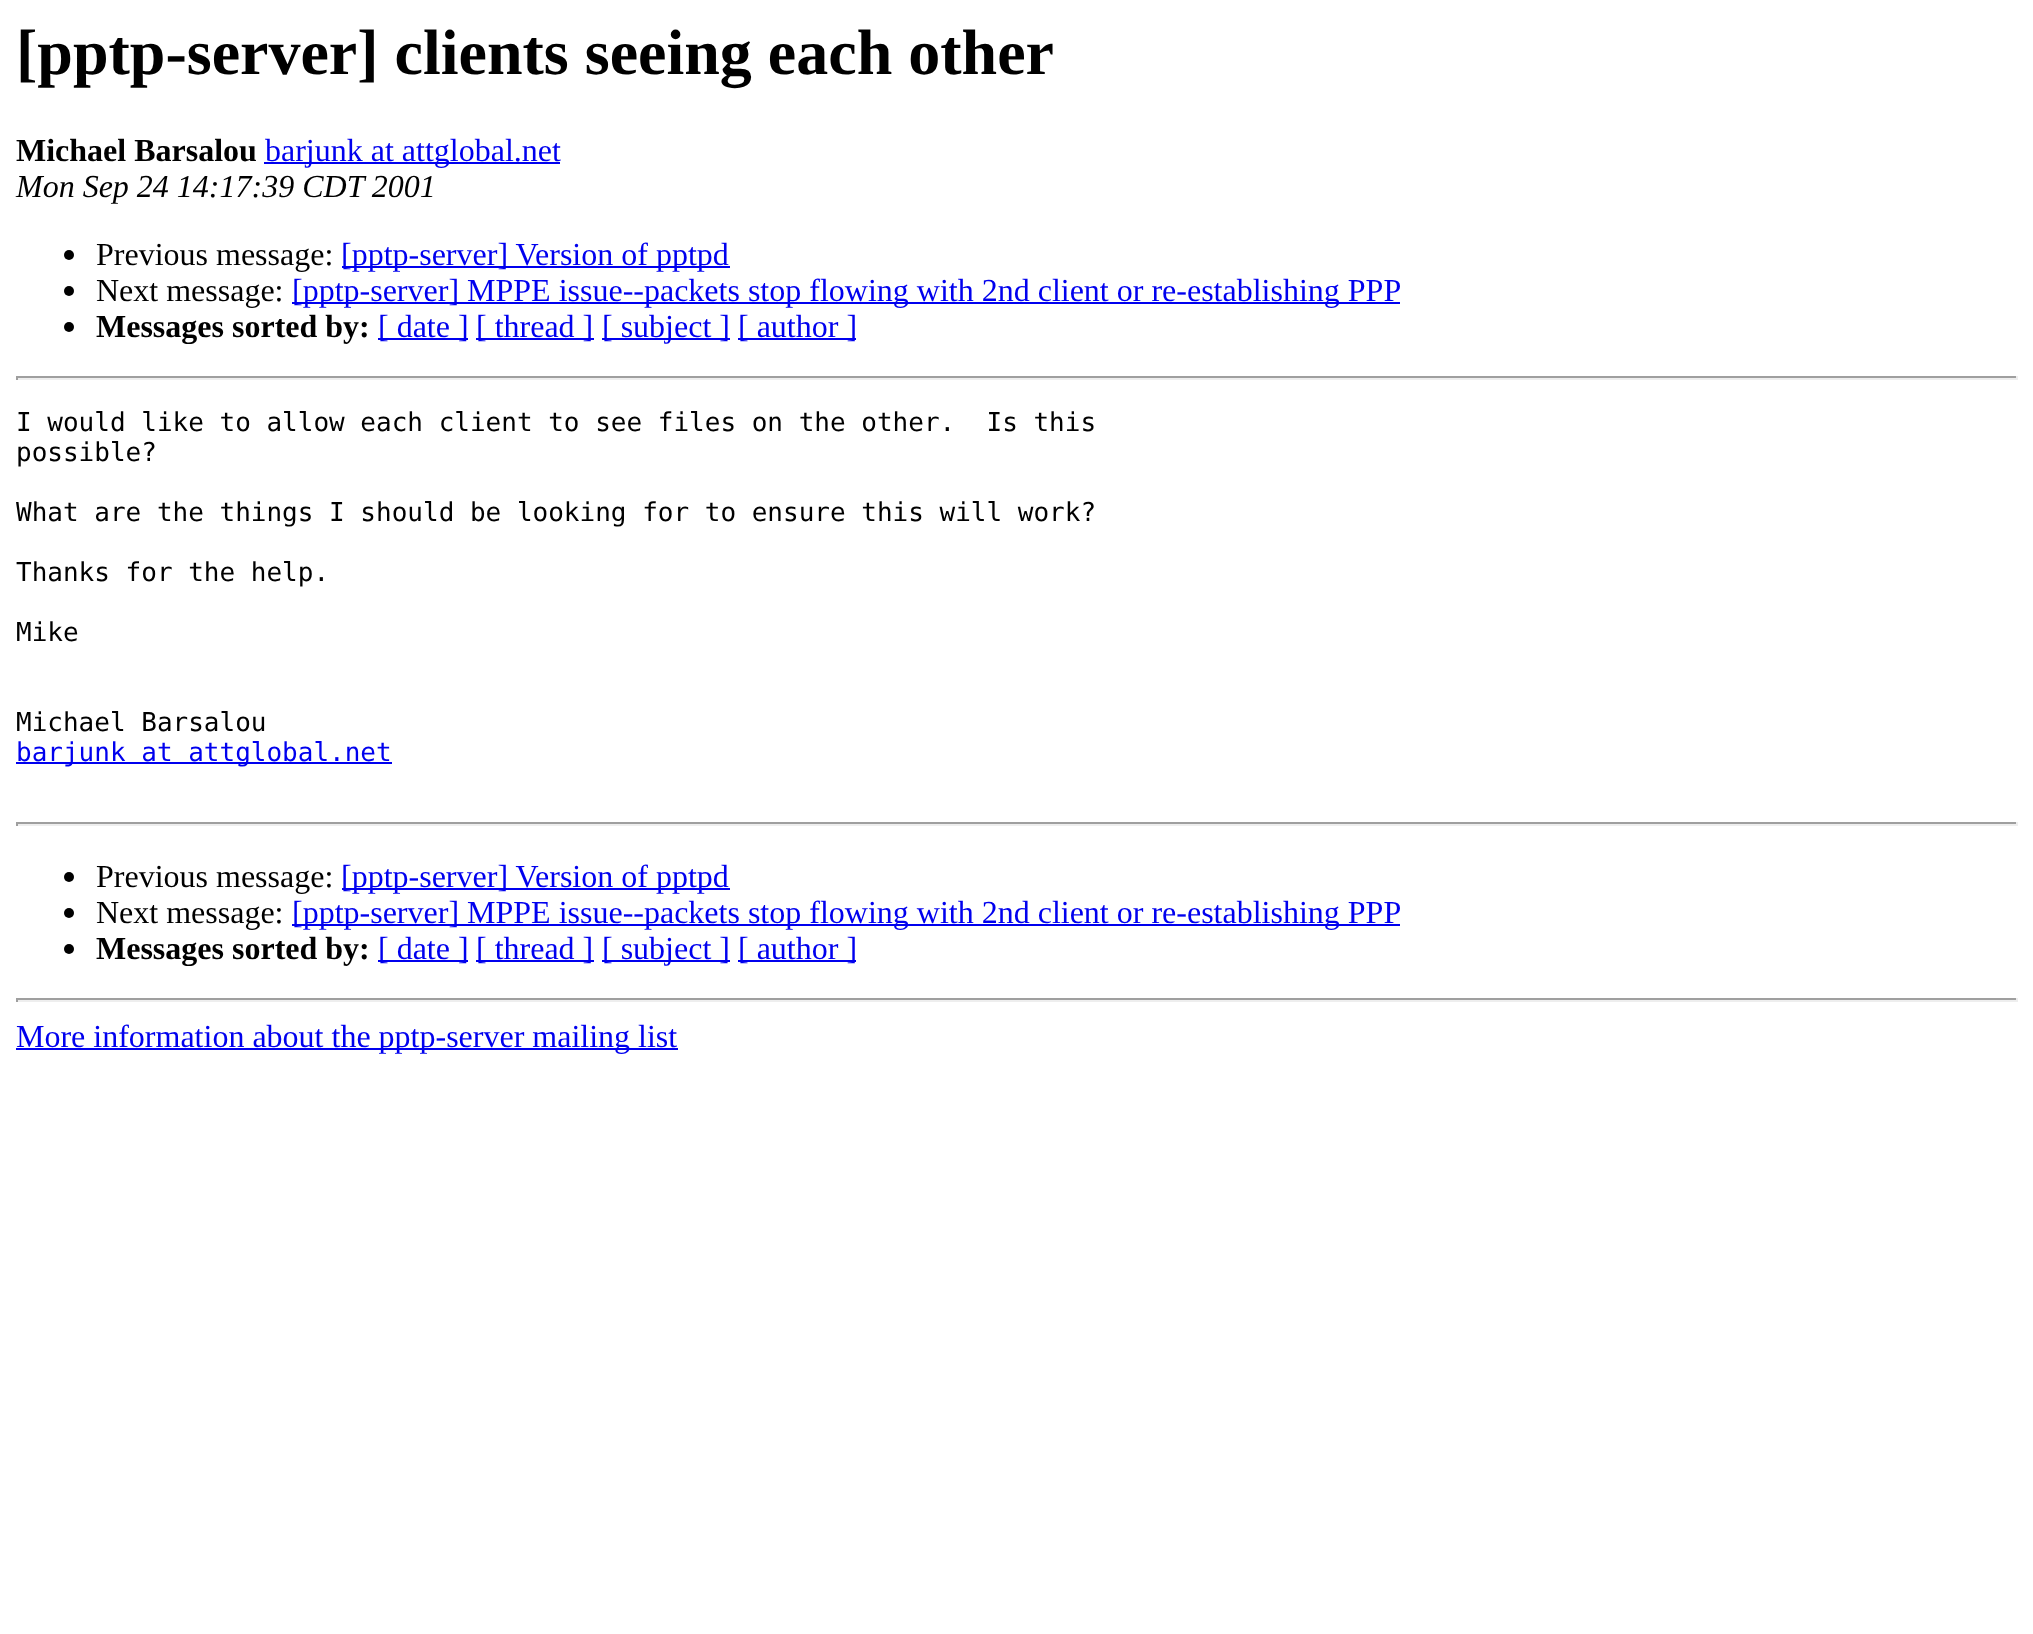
<!DOCTYPE html>
<meta charset="utf-8">
<style>body { margin: 0 } canvas { display: block }</style>
<canvas id="canvas" width="2033" height="1634"></canvas>
<script type="module">
  const canvas = document.getElementById("canvas");
  const g = canvas.getContext("2d");
  g.miterLimit = 4;
  g.fontKerning = "normal";
  function drawText(s, x, y, [font, color]) {
    g.font = font;
    g.fillStyle = color;
    g.fillText(s, x, y);
  }
  function fillBox(x, y, w, h, color) {
    g.fillStyle = color;
    g.fillRect(x, y, w, h);
  }

  const s1 = ["bold 64px Liberation Serif", "#000000"];
  const s2 = ["bold 32px Liberation Serif", "#000000"];
  const s3 = ["32px Liberation Serif", "#0000EE"];
  const s4 = ["italic 32px Liberation Serif", "#000000"];
  const s5 = ["32px Liberation Serif", "#000000"];
  const s6 = ["26px DejaVu Sans Mono", "#000000"];
  const s7 = ["26px DejaVu Sans Mono", "#0000EE"];

  fillBox(0, 0, 2033, 1634, "#FFFFFF");
  drawText("[pptp-server] clients seeing each other", 16, 74, s1);
  drawText("Michael Barsalou", 16, 161, s2);
  fillBox(264, 162, 296, 2, "#0000EE");
  drawText("barjunk at attglobal.net", 265, 161, s3);
  drawText("Mon Sep 24 14:17:39 CDT 2001", 16, 197, s4);
  g.beginPath();
  g.arc(69, 255, 5, 0, Math.PI * 2);
  g.fill();
  drawText("Previous message:", 96, 265, s5);
  fillBox(342, 266, 388, 2, "#0000EE");
  drawText("[pptp-server] Version of pptpd", 341, 265, s3);
  g.fillStyle = "#000000";
  g.beginPath();
  g.arc(69, 291, 5, 0, Math.PI * 2);
  g.fill();
  drawText("Next message:", 96, 301, s5);
  fillBox(292, 302, 1108, 2, "#0000EE");
  drawText("[pptp-server] MPPE issue--packets stop flowing with 2nd client or re-establishing PPP", 292, 301, s3);
  g.fillStyle = "#000000";
  g.beginPath();
  g.arc(69, 327, 5, 0, Math.PI * 2);
  g.fill();
  drawText("Messages sorted by:", 96, 337, s2);
  fillBox(378, 338, 90, 2, "#0000EE");
  drawText("[ date ]", 378, 337, s3);
  fillBox(476, 338, 118, 2, "#0000EE");
  drawText("[ thread ]", 476, 337, s3);
  fillBox(602, 338, 128, 2, "#0000EE");
  drawText("[ subject ]", 602, 337, s3);
  fillBox(738, 338, 118, 2, "#0000EE");
  drawText("[ author ]", 738, 337, s3);
  fillBox(16, 376, 2002, 2, "#9F9F9F");
  fillBox(2016, 376, 2, 4, "#EEEEEE");
  fillBox(16, 378, 2002, 2, "#EEEEEE");
  fillBox(16, 376, 2, 4, "#9F9F9F");
  drawText("I would like to allow each client to see files on the other.  Is this", 16, 431, s6);
  drawText("possible?", 16, 461, s6);
  drawText("What are the things I should be looking for to ensure this will work?", 16, 521, s6);
  drawText("Thanks for the help.", 16, 581, s6);
  drawText("Mike", 16, 641, s6);
  drawText("Michael Barsalou", 16, 731, s6);
  fillBox(16, 762, 376, 2, "#0000EE");
  drawText("barjunk at attglobal.net", 16, 761, s7);
  fillBox(16, 822, 2002, 2, "#9F9F9F");
  fillBox(2016, 822, 2, 4, "#EEEEEE");
  fillBox(16, 824, 2002, 2, "#EEEEEE");
  fillBox(16, 822, 2, 4, "#9F9F9F");
  g.fillStyle = "#000000";
  g.beginPath();
  g.arc(69, 877, 5, 0, Math.PI * 2);
  g.fill();
  drawText("Previous message:", 96, 887, s5);
  fillBox(342, 888, 388, 2, "#0000EE");
  drawText("[pptp-server] Version of pptpd", 341, 887, s3);
  g.fillStyle = "#000000";
  g.beginPath();
  g.arc(69, 913, 5, 0, Math.PI * 2);
  g.fill();
  drawText("Next message:", 96, 923, s5);
  fillBox(292, 924, 1108, 2, "#0000EE");
  drawText("[pptp-server] MPPE issue--packets stop flowing with 2nd client or re-establishing PPP", 292, 923, s3);
  g.fillStyle = "#000000";
  g.beginPath();
  g.arc(69, 949, 5, 0, Math.PI * 2);
  g.fill();
  drawText("Messages sorted by:", 96, 959, s2);
  fillBox(378, 960, 90, 2, "#0000EE");
  drawText("[ date ]", 378, 959, s3);
  fillBox(476, 960, 118, 2, "#0000EE");
  drawText("[ thread ]", 476, 959, s3);
  fillBox(602, 960, 128, 2, "#0000EE");
  drawText("[ subject ]", 602, 959, s3);
  fillBox(738, 960, 118, 2, "#0000EE");
  drawText("[ author ]", 738, 959, s3);
  fillBox(16, 998, 2002, 2, "#9F9F9F");
  fillBox(2016, 998, 2, 4, "#EEEEEE");
  fillBox(16, 1000, 2002, 2, "#EEEEEE");
  fillBox(16, 998, 2, 4, "#9F9F9F");
  fillBox(16, 1048, 662, 2, "#0000EE");
  drawText("More information about the pptp-server mailing list", 16, 1047, s3);
</script>
